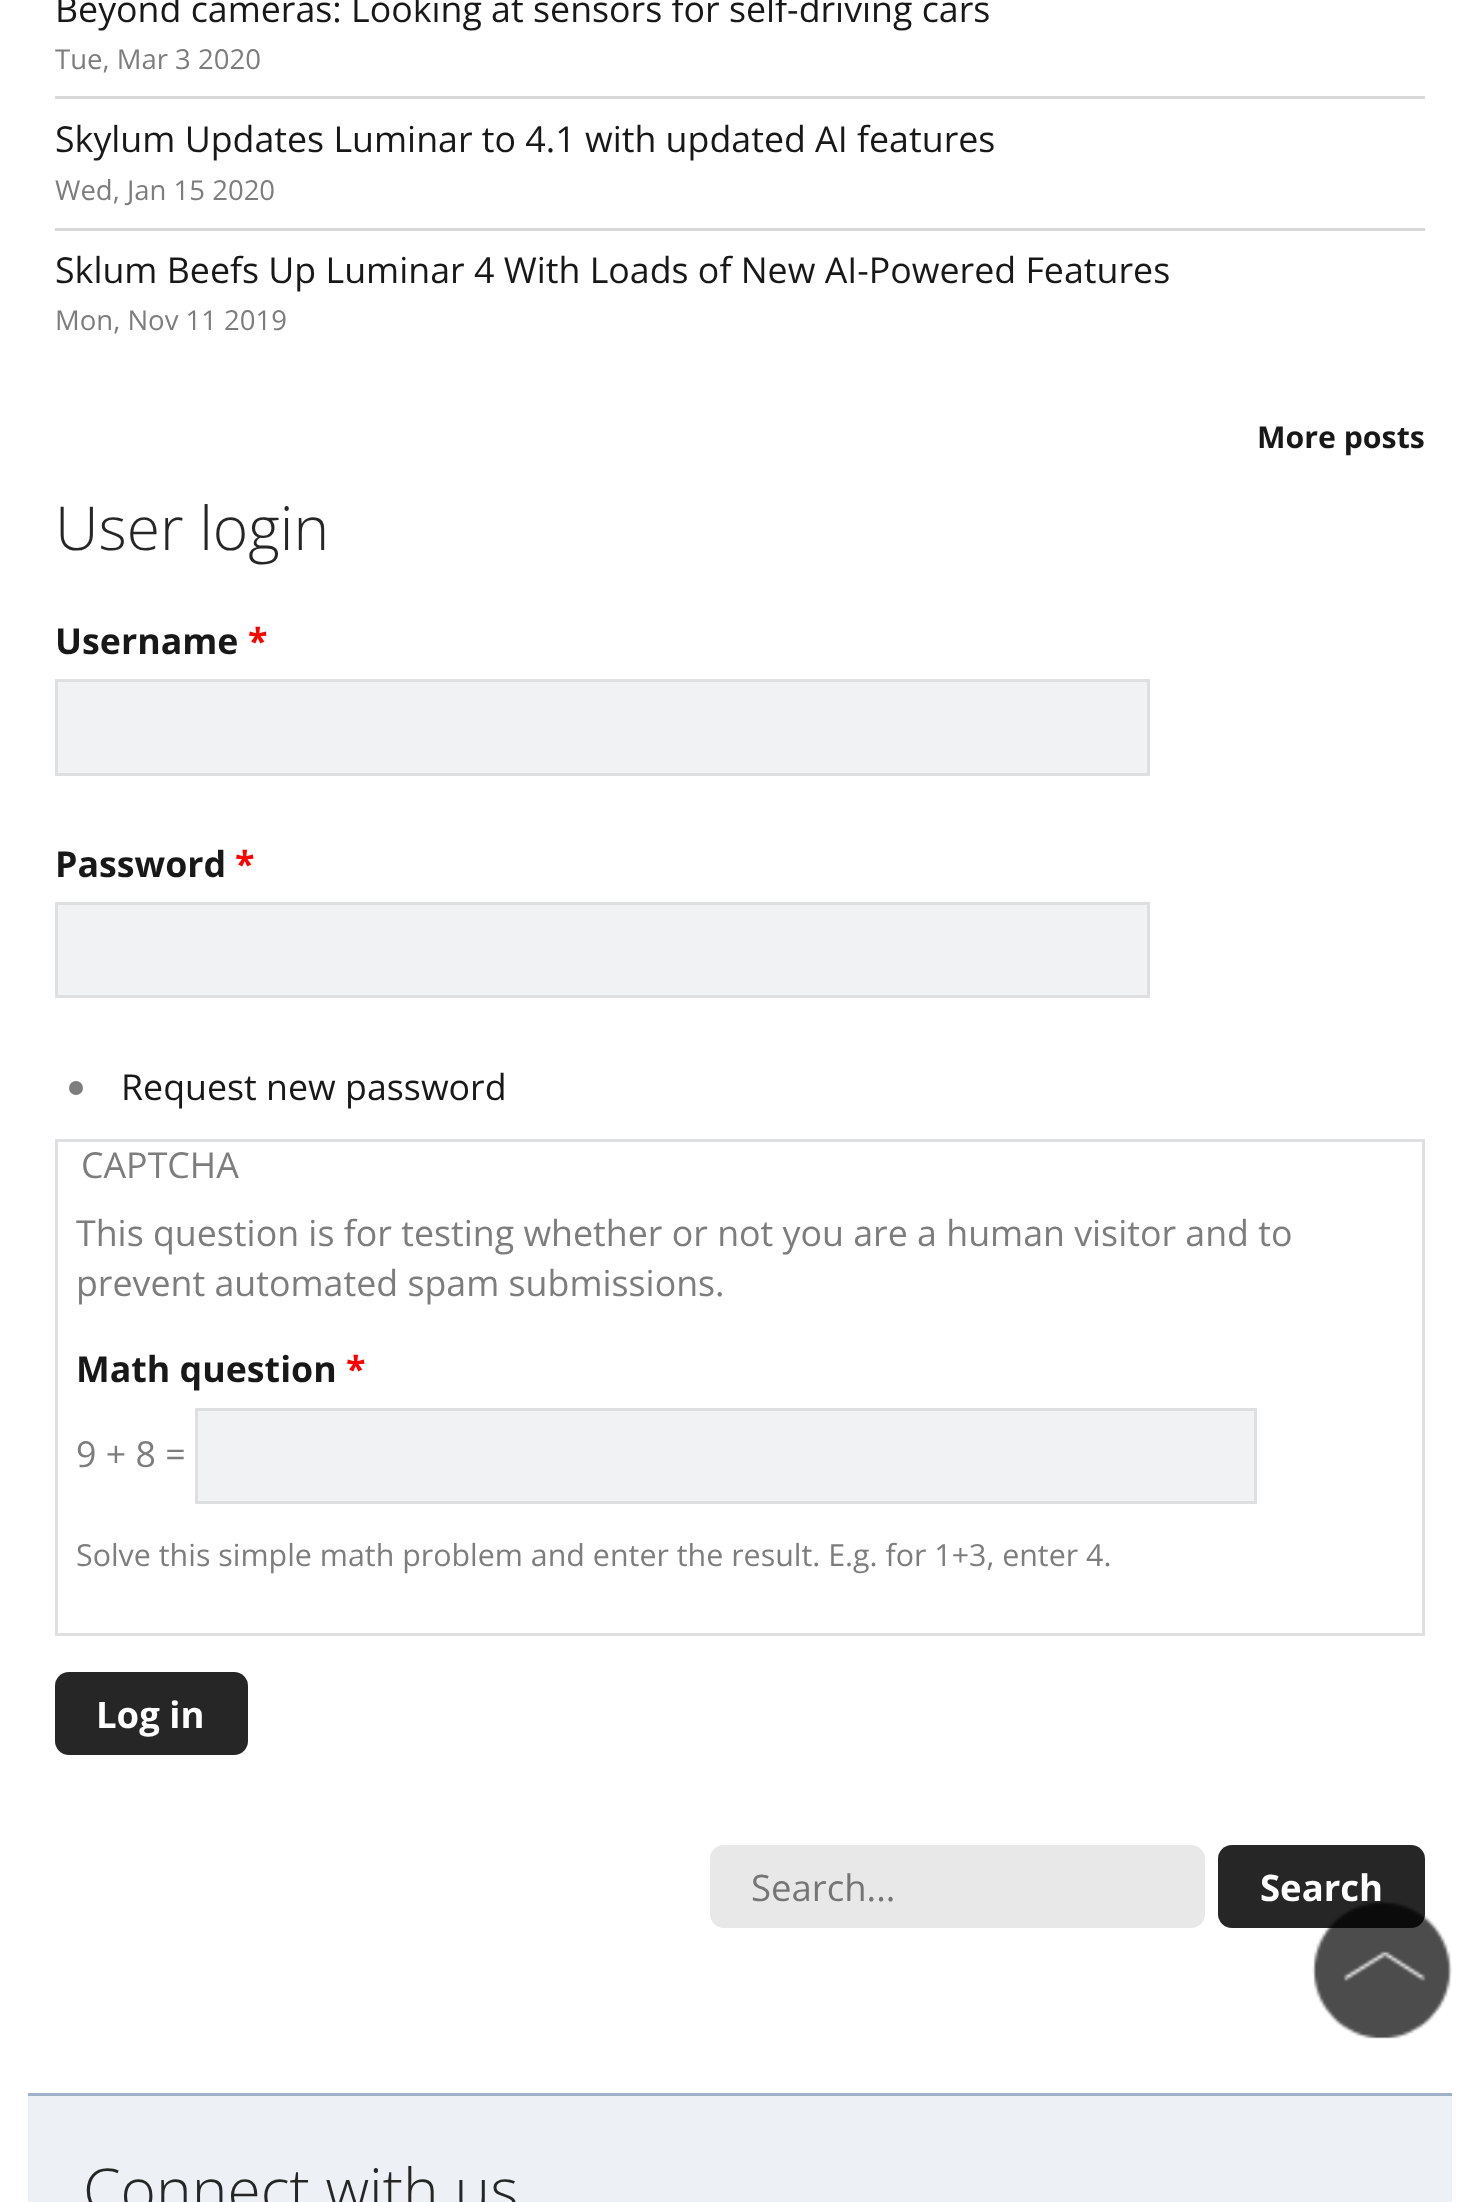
<!DOCTYPE html>
<meta charset="utf-8">
<style>body { margin: 0 } canvas { display: block }</style>
<canvas id="canvas" width="1479" height="2202"></canvas>
<script type="module">
  const canvas = document.getElementById("canvas");
  const g = canvas.getContext("2d");
  g.miterLimit = 4;
  g.fontKerning = "normal";
  function drawText(s, x, y, [font, color]) {
    g.font = font;
    g.fillStyle = color;
    g.fillText(s, x, y);
  }
  function fillBox(x, y, w, h, color) {
    g.fillStyle = color;
    g.fillRect(x, y, w, h);
  }
  function fillRounded(x, y, w, h, r, color) {
    g.fillStyle = color;
    g.beginPath();
    g.roundRect(x, y, w, h, r);
    g.fill();
  }
  async function drawPicture(src, x, y, w, h) {
    const img = new Image();
    img.src = src;
    await img.decode();
    g.drawImage(img, x, y, w, h);
  }

  const s1 = ["35.75px Open Sans", "#181818"];
  const s2 = ["27.5px Open Sans", "#7D7D7D"];
  const s3 = ["bold 30.25px Open Sans", "#181818"];
  const s4 = ["300 60.5px Open Sans", "#262626"];
  const s5 = ["bold 35.75px Open Sans", "#181818"];
  const s6 = ["bold 35.75px Open Sans", "#FF0000"];
  const s7 = ["35.75px Open Sans", "#7D7D7D"];
  const s8 = ["30.4px Open Sans", "#7D7D7D"];
  const s9 = ["bold 36.5px Open Sans", "#FFFFFF"];
  const s10 = ["36.5px Open Sans", "#757575"];

  fillBox(0, 0, 1479, 2202, "#FFFFFF");
  fillBox(55, 96, 1370, 3, "#D8D8D8");
  drawText("Beyond cameras: Looking at sensors for self-driving cars", 55, 22, s1);
  drawText("Tue, Mar 3 2020", 55, 69, s2);
  fillBox(55, 228, 1370, 3, "#D8D8D8");
  drawText("Skylum Updates Luminar to 4.1 with updated AI features", 55, 152, s1);
  drawText("Wed, Jan 15 2020", 55, 200, s2);
  drawText("Sklum Beefs Up Luminar 4 With Loads of New AI-Powered Features", 55, 283, s1);
  drawText("Mon, Nov 11 2019", 55, 330, s2);
  drawText("More posts", 1257, 448, s3);
  drawText("User login", 55, 550, s4);
  drawText("Username", 55, 654, s5);
  drawText("*", 248, 654, s6);
  g.fillStyle = "#F1F2F4";
  g.beginPath();
  g.rect(56.5, 680.5, 1092, 94);
  g.fill();
  g.strokeStyle = "#DEDFE1";
  g.lineWidth = 3;
  g.stroke();
  drawText("Password", 55, 877, s5);
  drawText("*", 235, 877, s6);
  g.fillStyle = "#F1F2F4";
  g.beginPath();
  g.rect(56.5, 903.5, 1092, 93);
  g.fill();
  g.stroke();
  g.fillStyle = "#7D7D7D";
  g.beginPath();
  g.arc(76, 1088, 7, 0, Math.PI * 2);
  g.fill();
  drawText("Request new password", 121, 1100, s1);
  g.strokeRect(56.5, 1140.5, 1367, 494);
  drawText("CAPTCHA", 81, 1178, s7);
  drawText("This question is for testing whether or not you are a human visitor and to", 76, 1246, s7);
  drawText("prevent automated spam submissions.", 76, 1296, s7);
  drawText("Math question", 76, 1382, s5);
  drawText("*", 346, 1382, s6);
  drawText("9 + 8 =", 76, 1467, s7);
  g.fillStyle = "#F1F2F4";
  g.beginPath();
  g.rect(196.5, 1409.5, 1059, 93);
  g.fill();
  g.stroke();
  drawText("Solve this simple math problem and enter the result. E.g. for 1+3, enter 4.", 76, 1566, s8);
  fillRounded(55, 1672, 193, 83, 14, "#262626");
  drawText("Log in", 96, 1728, s9);
  fillRounded(710, 1845, 495, 83, 14, "#E8E8E8");
  drawText("Search...", 751, 1901, s10);
  fillRounded(1218, 1845, 207, 83, 14, "#262626");
  drawText("Search", 1260, 1901, s9);
  fillBox(28, 2096, 1424, 106, "#EDF0F5");
  fillBox(28, 2093, 1424, 3, "#9FB1C5");
  drawText("Connect with us", 83, 2212, s4);
  await drawPicture("pic1.png", 1312, 1900, 140, 139);
</script>
